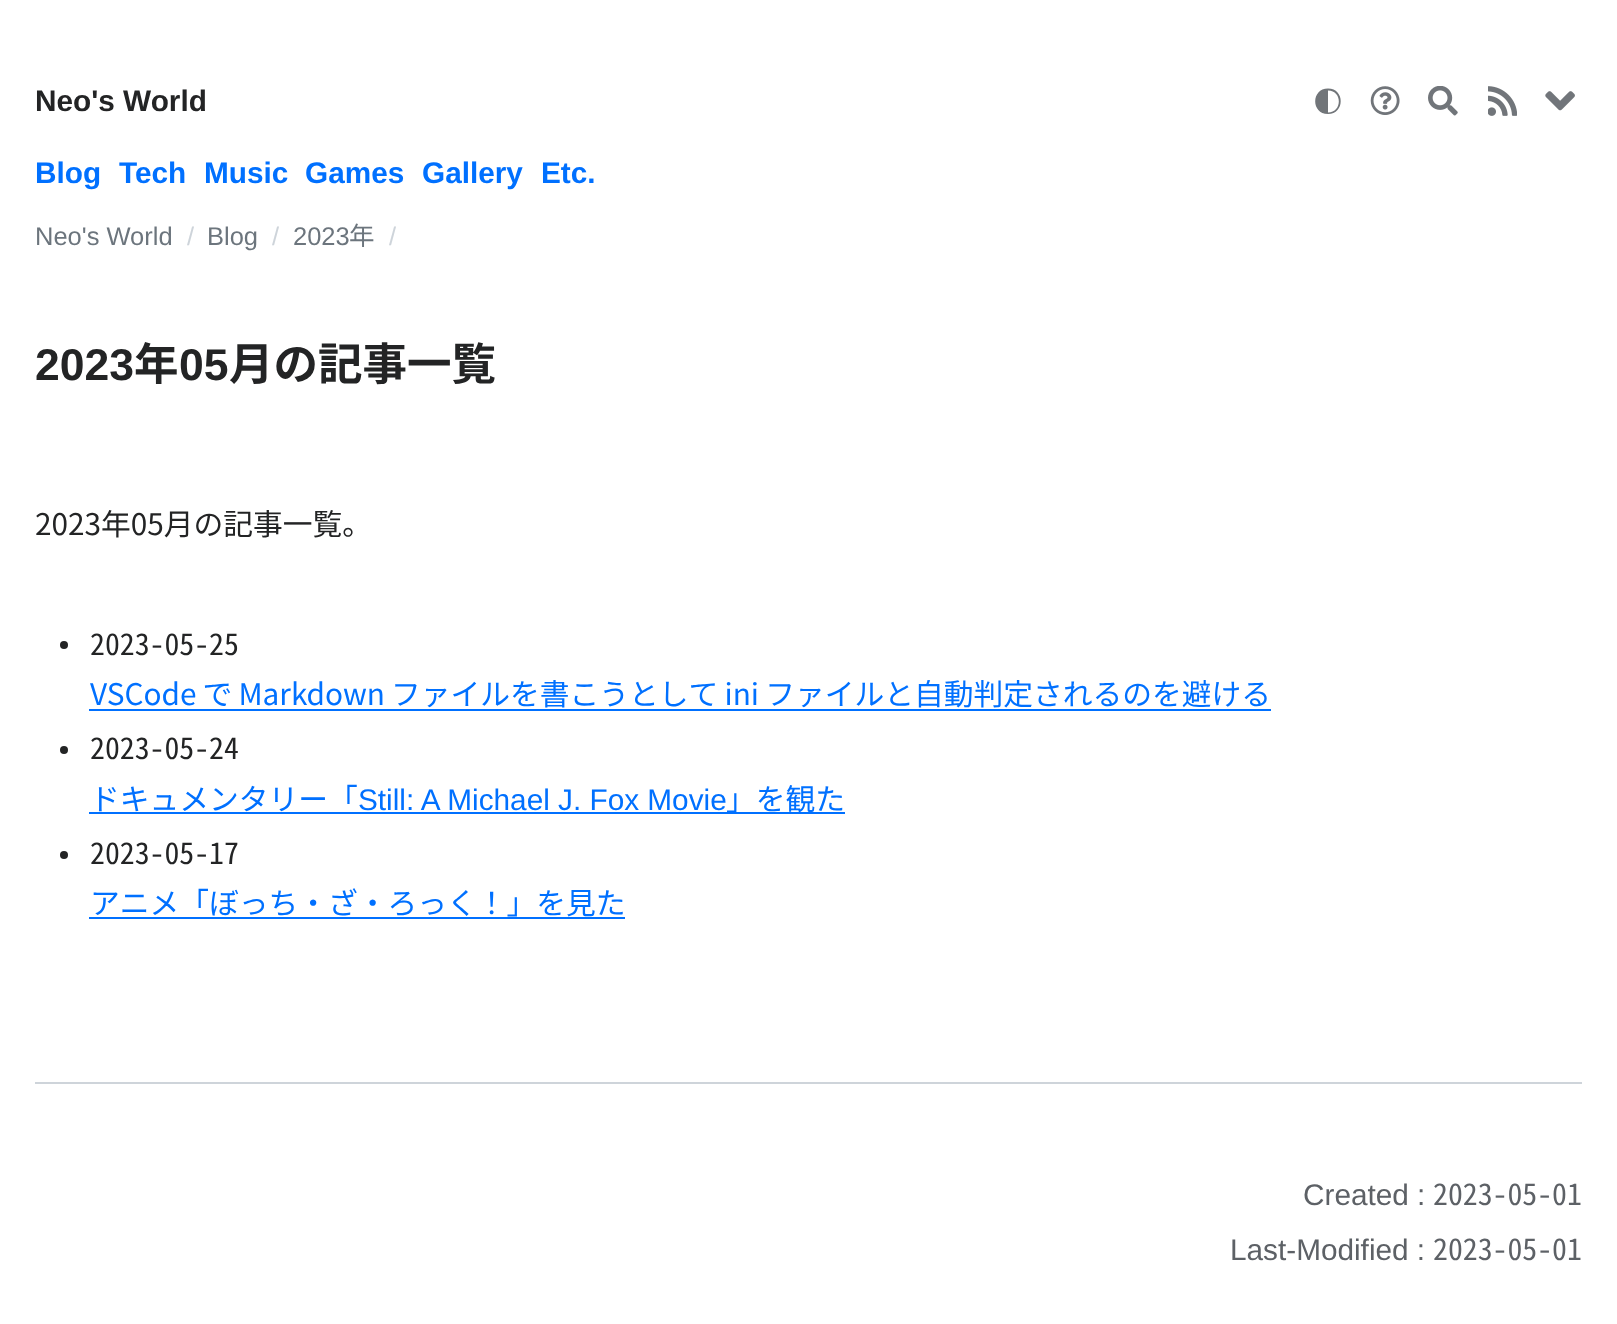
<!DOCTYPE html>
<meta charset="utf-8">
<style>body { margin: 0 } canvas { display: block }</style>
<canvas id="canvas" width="1617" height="1324"></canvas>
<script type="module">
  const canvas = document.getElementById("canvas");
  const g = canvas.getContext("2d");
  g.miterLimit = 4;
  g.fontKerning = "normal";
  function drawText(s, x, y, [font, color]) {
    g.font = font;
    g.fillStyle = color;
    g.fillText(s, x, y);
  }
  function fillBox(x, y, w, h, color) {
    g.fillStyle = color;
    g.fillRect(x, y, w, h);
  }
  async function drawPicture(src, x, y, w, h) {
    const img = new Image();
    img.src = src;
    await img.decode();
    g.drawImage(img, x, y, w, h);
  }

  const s1 = ["bold 29.75px Liberation Sans", "#232425"];
  const s2 = ["bold 29.75px Liberation Sans", "#0070FF"];
  const s3 = ["25.5px Liberation Sans", "#6C757D"];
  const s4 = ["25.5px Liberation Sans", "#CED4DA"];
  const s5 = ["25.5px Noto Sans JP", "#6C757D"];
  const s6 = ["bold 44.5px Liberation Sans", "#232425"];
  const s7 = ["bold 44.5px Noto Sans JP", "#232425"];
  const s8 = ["29.75px Noto Sans JP", "#232425"];
  const s9 = ["29.75px Noto Sans Mono CJK JP", "#232425"];
  const s10 = ["29.75px Noto Sans JP", "#0070FF"];
  const s11 = ["29.75px Liberation Sans", "#0070FF"];
  const s12 = ["29.75px Liberation Sans", "#5D6166"];
  const s13 = ["29.75px Noto Sans Mono CJK JP", "#5D6166"];

  fillBox(0, 0, 1617, 1324, "#FFFFFF");
  drawText("Neo's World", 35, 111, s1);
  g.fillStyle = "#717579";
  g.beginPath();
  g.moveTo(1328, 114);
  g.bezierCurveTo(1345, 114, 1345, 88.5, 1328, 88.5);
  g.bezierCurveTo(1311, 88.5, 1311, 114, 1328, 114);
  g.closePath();
  g.moveTo(1328, 112.5);
  g.lineTo(1328, 90.5);
  g.bezierCurveTo(1342.5, 90.5, 1342.5, 112.5, 1328, 112.5);
  g.closePath();
  g.fill();
  await drawPicture("pic1.png", 1370, 86, 30, 29);
  await drawPicture("pic2.png", 1428, 86, 30, 30);
  await drawPicture("pic3.png", 1488, 86, 29, 30);
  await drawPicture("pic4.png", 1545, 91, 30, 20);
  drawText("Blog", 35, 183, s2);
  drawText("Tech", 119, 183, s2);
  drawText("Music", 204, 183, s2);
  drawText("Games", 305, 183, s2);
  drawText("Gallery", 422, 183, s2);
  drawText("Etc.", 541, 183, s2);
  drawText("Neo's World", 35, 245, s3);
  drawText("/", 187, 245, s4);
  drawText("Blog", 207, 245, s3);
  drawText("/", 272, 245, s4);
  drawText("2023", 293, 245, s3);
  drawText("年", 349, 245, s5);
  drawText("/", 389, 245, s4);
  drawText("2023", 35, 380, s6);
  drawText("年", 134, 380, s7);
  drawText("05", 179, 380, s6);
  drawText("月の記事一覧", 229, 380, s7);
  drawText("2023年05月の記事一覧。", 35, 535, s8);
  g.beginPath();
  g.arc(64, 645, 4, 0, Math.PI * 2);
  g.fill();
  drawText("2023-05-25", 90, 655, s9);
  g.wordSpacing = "-0.5px";
  drawText("VSCode で Markdown ファイルを書こうとして ini ファイルと自動判定されるのを避ける", 90, 705, s10);
  fillBox(89, 709, 1182, 2, "#0070FF");
  g.fillStyle = "#232425";
  g.beginPath();
  g.arc(64, 750, 4, 0, Math.PI * 2);
  g.fill();
  g.wordSpacing = "0px";
  drawText("2023-05-24", 90, 759, s9);
  drawText("ドキュメンタリー「", 90, 810, s10);
  drawText("Still: A Michael J. Fox Movie", 358, 810, s11);
  fillBox(89, 812, 756, 2, "#0070FF");
  drawText("」を観た", 726, 810, s10);
  g.fillStyle = "#232425";
  g.beginPath();
  g.arc(64, 855, 4, 0, Math.PI * 2);
  g.fill();
  drawText("2023-05-17", 90, 864, s9);
  drawText("アニメ「ぼっち・ざ・ろっく！」を見た", 90, 914, s10);
  fillBox(89, 917, 536, 2, "#0070FF");
  fillBox(35, 1082, 1547, 2, "#CED4DA");
  drawText("Created :", 1303, 1205, s12);
  drawText("2023-05-01", 1433, 1205, s13);
  drawText("Last-Modified :", 1230, 1260, s12);
  drawText("2023-05-01", 1433, 1260, s13);
</script>
